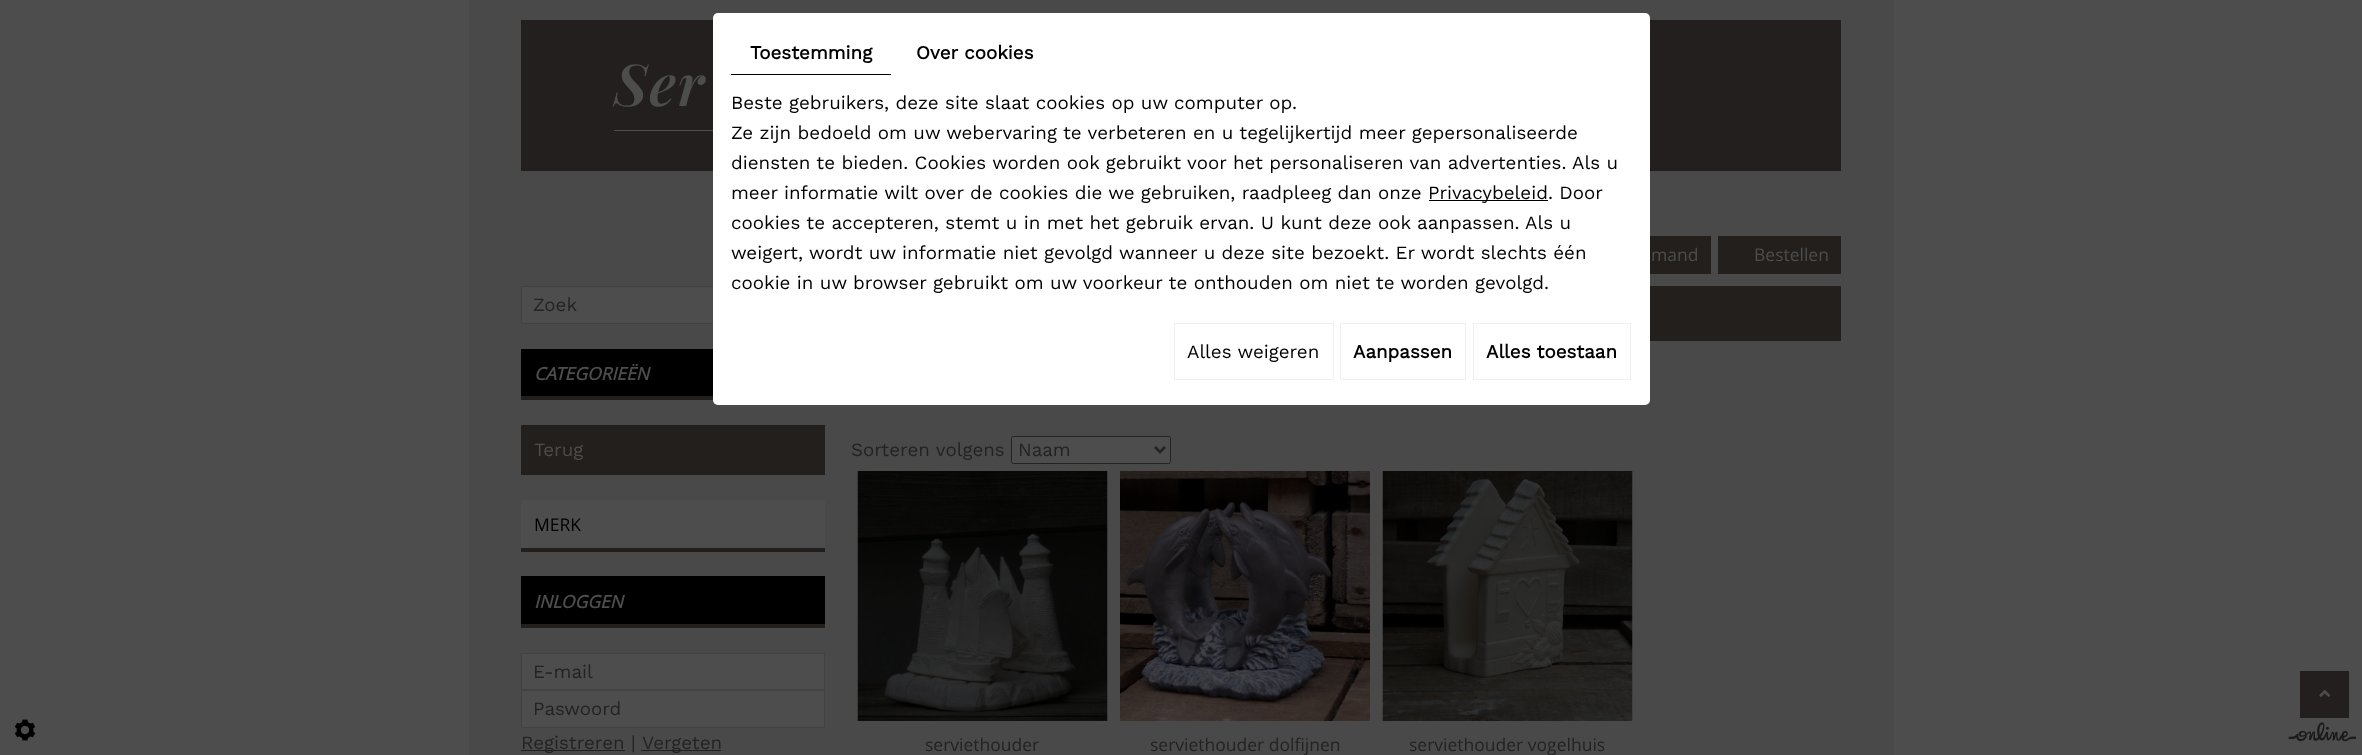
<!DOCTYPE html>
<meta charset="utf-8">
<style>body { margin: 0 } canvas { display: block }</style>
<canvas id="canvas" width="2362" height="755"></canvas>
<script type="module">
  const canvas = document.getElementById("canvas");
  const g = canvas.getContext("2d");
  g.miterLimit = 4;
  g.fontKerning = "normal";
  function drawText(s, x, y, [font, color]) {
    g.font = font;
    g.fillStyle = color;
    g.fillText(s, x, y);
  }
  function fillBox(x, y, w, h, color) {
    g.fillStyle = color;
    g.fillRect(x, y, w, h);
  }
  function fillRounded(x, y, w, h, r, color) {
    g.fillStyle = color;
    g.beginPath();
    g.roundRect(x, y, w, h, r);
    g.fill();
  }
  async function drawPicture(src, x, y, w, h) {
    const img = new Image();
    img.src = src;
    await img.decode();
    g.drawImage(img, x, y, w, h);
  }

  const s1 = ["bold 18.75px Work Sans", "#000000"];
  const s2 = ["18.75px Work Sans", "#000000"];
  const s3 = ["italic 600 58px Playfair Display", "#4D4D4D"];
  const s4 = ["17.5px Open Sans", "#4D4D4D"];
  const s5 = ["18.75px Work Sans", "#232323"];
  const s6 = ["italic bold 17.5px Open Sans", "#4D4D4D"];
  const s7 = ["18.75px Work Sans", "#4D4D4D"];
  const s8 = ["17.5px Open Sans", "#000000"];
  const s9 = ["17.5px Open Sans", "#232323"];

  fillBox(0, 0, 2362, 755, "#4D4D4D");
  fillBox(469, 0, 1425, 755, "#494949");
  fillBox(521, 20, 1320, 151, "#221F1E");
  fillBox(522, 287, 191, 36, "#4D4D4D");
  g.strokeStyle = "#424243";
  g.strokeRect(521.5, 286.5, 303, 37);
  fillRounded(713, 13, 937, 392, 5, "#FFFFFF");
  fillBox(731, 74, 160, 1, "#000000");
  drawText("Toestemming", 750, 59, s1);
  drawText("Over cookies", 916, 59, s1);
  drawText("Beste gebruikers, deze site slaat cookies op uw computer op.", 731, 109, s2);
  drawText("Ze zijn bedoeld om uw webervaring te verbeteren en u tegelijkertijd meer gepersonaliseerde", 731, 139, s2);
  drawText("diensten te bieden. Cookies worden ook gebruikt voor het personaliseren van advertenties. Als u", 731, 169, s2);
  drawText("meer informatie wilt over de cookies die we gebruiken, raadpleeg dan onze", 731, 199, s2);
  fillBox(1429, 200, 119, 1, "#000000");
  drawText("Privacybeleid. Door", 1428, 199, s2);
  drawText("cookies te accepteren, stemt u in met het gebruik ervan. U kunt deze ook aanpassen. Als u", 731, 229, s2);
  drawText("weigert, wordt uw informatie niet gevolgd wanneer u deze site bezoekt. Er wordt slechts één", 731, 259, s2);
  drawText("cookie in uw browser gebruikt om uw voorkeur te onthouden om niet te worden gevolgd.", 731, 289, s2);
  g.strokeStyle = "#F0F0F0";
  g.strokeRect(1174.5, 323.5, 159, 56);
  drawText("Alles weigeren", 1187, 358, s2);
  g.strokeRect(1340.5, 323.5, 125, 56);
  drawText("Aanpassen", 1353, 358, s1);
  g.strokeRect(1473.5, 323.5, 157, 56);
  drawText("Alles toestaan", 1486, 358, s1);
  g.letterSpacing = "2px";
  drawText("Ser", 614, 106, s3);
  fillBox(614, 130, 99, 1, "#4D4D4D");
  fillBox(1650, 236, 61, 38, "#221F1C");
  g.letterSpacing = "0px";
  drawText("mand", 1651, 261, s4);
  fillBox(1718, 236, 123, 38, "#221F1C");
  drawText("Bestellen", 1754, 261, s4);
  drawText("Zoek", 533, 311, s5);
  fillBox(521, 349, 192, 47, "#000000");
  fillBox(521, 396, 192, 4, "#221F1C");
  drawText("CATEGORIEËN", 534, 380, s6);
  fillBox(521, 425, 304, 50, "#221F1C");
  drawText("Terug", 534, 456, s7);
  fillBox(521, 500, 304, 48, "#4D4D4D");
  fillBox(521, 548, 304, 4, "#221F1C");
  drawText("MERK", 534, 531, s8);
  fillBox(521, 576, 304, 48, "#000000");
  fillBox(521, 624, 304, 4, "#221F1C");
  drawText("INLOGGEN", 534, 608, s6);
  g.beginPath();
  g.rect(521.5, 653.5, 303, 36);
  g.fill();
  g.strokeStyle = "#424243";
  g.stroke();
  drawText("E-mail", 533, 678, s5);
  g.fillStyle = "#4D4D4D";
  g.beginPath();
  g.rect(521.5, 690.5, 303, 37);
  g.fill();
  g.stroke();
  drawText("Paswoord", 533, 715, s5);
  fillBox(521, 750, 104, 1, "#221F1E");
  drawText("Registreren", 521, 749, s5);
  drawText("|", 631, 749, s5);
  fillBox(641, 750, 80, 1, "#221F1E");
  drawText("Vergeten", 642, 749, s5);
  fillBox(1650, 286, 191, 55, "#221F1C");
  drawText("Sorteren volgens", 851, 456, s5);
  g.fillStyle = "#4D4D4D";
  g.beginPath();
  g.roundRect(1011.5, 436.5, 159, 27, 2);
  g.fill();
  g.strokeStyle = "#232323";
  g.stroke();
  g.beginPath();
  g.moveTo(1155, 447);
  g.lineTo(1160, 452);
  g.lineTo(1165, 447);
  g.strokeStyle = "#242424";
  g.lineWidth = 2.5;
  g.stroke();
  drawText("Naam", 1018, 456, s5);
  await drawPicture("pic1.png", 857, 471, 251, 250);
  drawText("serviethouder", 925, 751, s9);
  await drawPicture("pic2.png", 1120, 471, 250, 250);
  drawText("serviethouder dolfijnen", 1150, 751, s9);
  await drawPicture("pic3.png", 1382, 471, 251, 250);
  drawText("serviethouder vogelhuis", 1409, 751, s9);
  fillBox(2300, 671, 49, 47, "#221F1E");
  await drawPicture("pic4.png", 2319, 690, 12, 7);
  await drawPicture("pic5.png", 14, 719, 22, 22);
  await drawPicture("pic6.png", 2288, 722, 68, 20);
</script>
